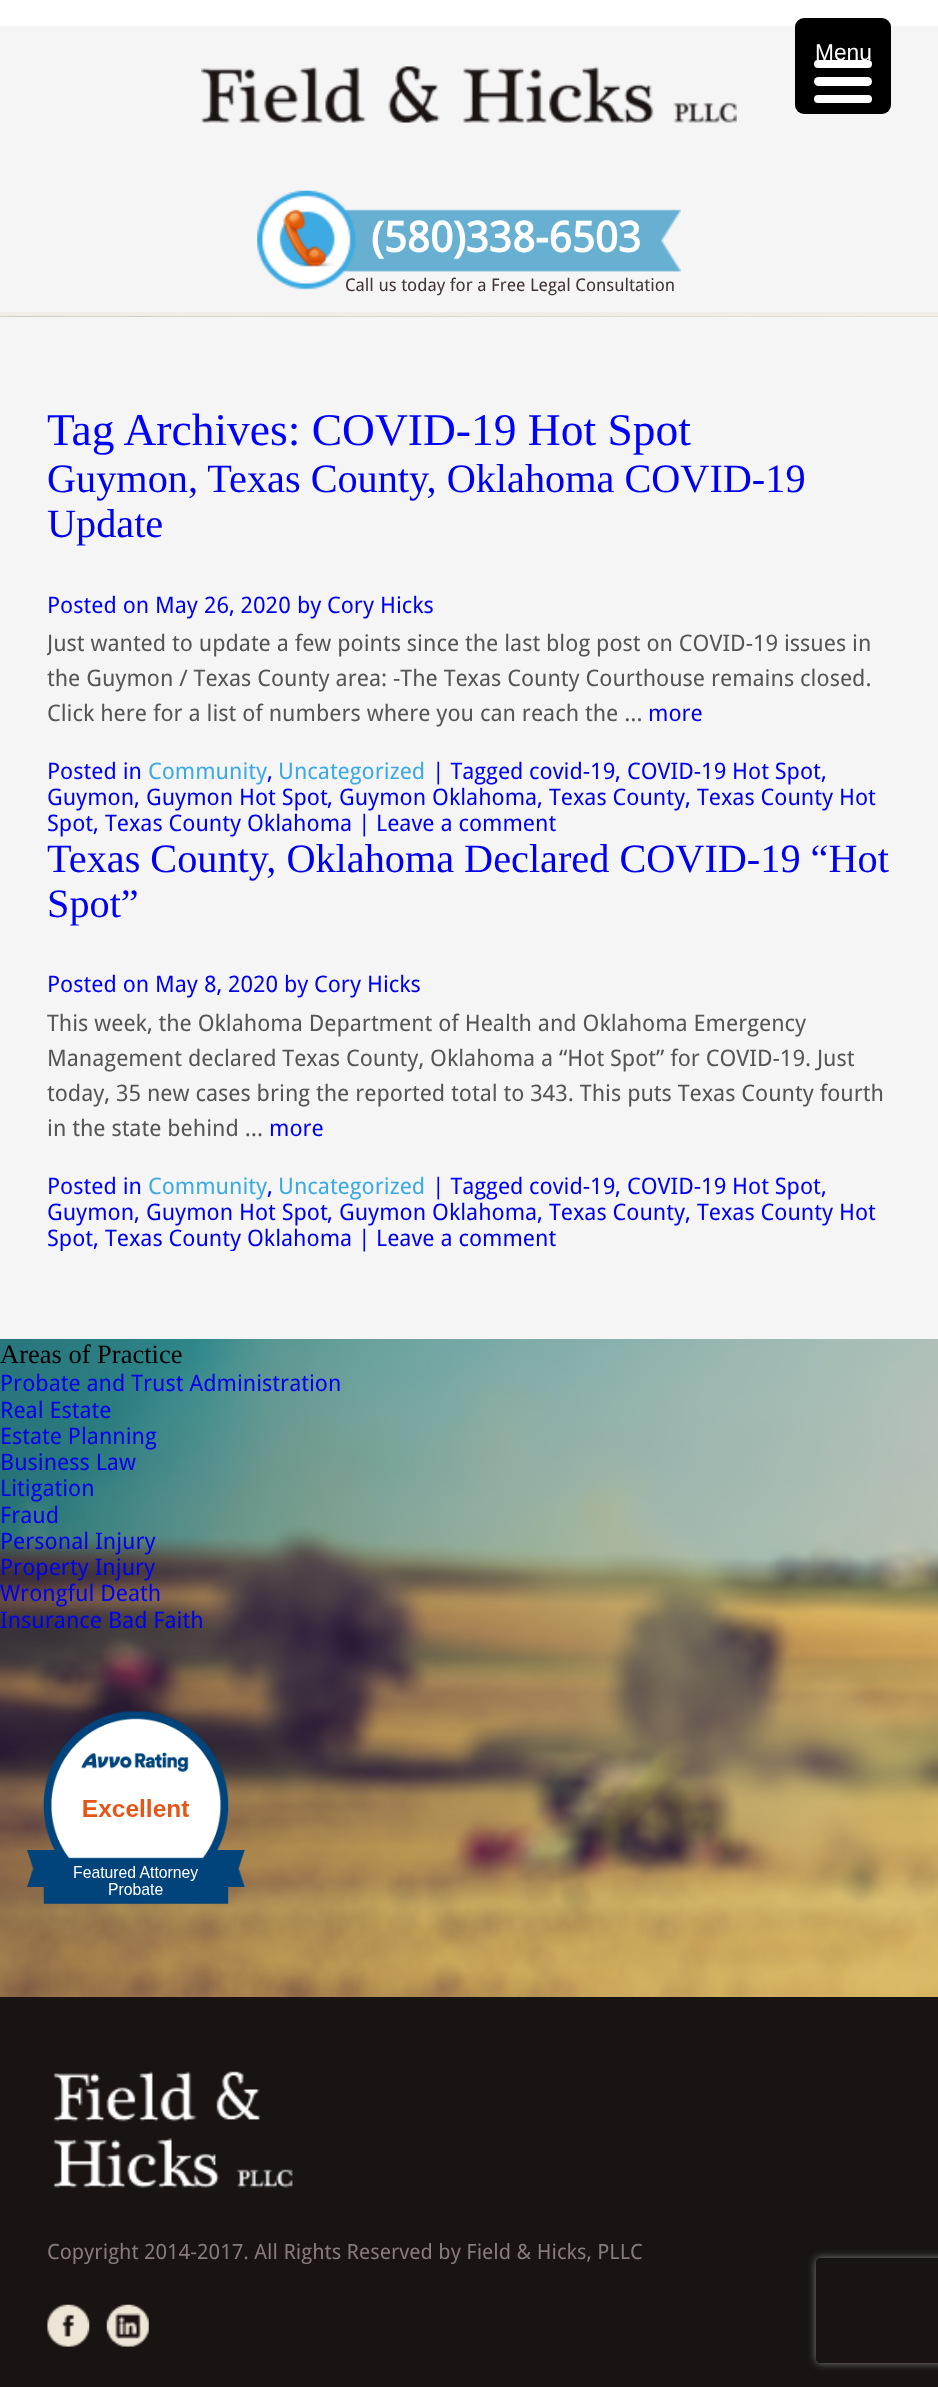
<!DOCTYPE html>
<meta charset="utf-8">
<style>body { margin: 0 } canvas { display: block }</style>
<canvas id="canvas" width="938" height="2387"></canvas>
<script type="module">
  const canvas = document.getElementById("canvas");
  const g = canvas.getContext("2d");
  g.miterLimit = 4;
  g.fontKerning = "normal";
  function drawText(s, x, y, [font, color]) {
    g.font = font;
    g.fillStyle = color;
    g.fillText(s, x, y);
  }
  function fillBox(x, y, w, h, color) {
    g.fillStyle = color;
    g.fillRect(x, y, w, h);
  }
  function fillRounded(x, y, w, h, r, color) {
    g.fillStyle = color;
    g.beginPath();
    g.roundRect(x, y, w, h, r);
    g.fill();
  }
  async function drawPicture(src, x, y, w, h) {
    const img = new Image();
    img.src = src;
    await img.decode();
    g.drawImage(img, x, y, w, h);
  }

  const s1 = ["22.75px Liberation Sans", "#FFFFFF"];
  const s2 = ["45.5px Liberation Serif", "#0000FF"];
  const s3 = ["40.25px Liberation Serif", "#0000EE"];
  const s4 = ["22.75px Droid Sans", "#0000FF"];
  const s5 = ["22.75px Droid Sans", "#0000EE"];
  const s6 = ["22.75px Droid Sans", "#555555"];
  const s7 = ["22.75px Droid Sans", "#3DAAE3"];
  const s8 = ["26.5px Liberation Serif", "#000000"];
  const s9 = ["21px Droid Sans", "#877A7A"];
  const s10 = ["bold 42px Droid Sans", "#FFFFFF"];
  const s11 = ["17.5px Droid Sans", "#433333"];

  fillBox(0, 0, 938, 2387, "#FFFFFF");
  fillBox(0, 312, 938, 5, "#F1EEEA");
  await drawPicture("pic1.png", 0, 316, 938, 1681);
  fillBox(0, 26, 938, 286, "#F5F5F5");
  fillRounded(795, 18, 96, 96, 9, "#000000");
  drawText("Menu", 815, 60, s1);
  fillRounded(814, 77, 58, 9, 4.5, "#FFFFFF");
  fillRounded(814, 60, 58, 8, 4, "#FFFFFF");
  fillRounded(814, 95, 58, 8, 4, "#FFFFFF");
  fillBox(0, 317, 938, 1022, "#F5F5F5");
  drawText("Tag Archives: COVID-19 Hot Spot", 47, 445, s2);
  drawText("Guymon, Texas County, Oklahoma COVID-19", 47, 492, s3);
  drawText("Update", 47, 537, s3);
  drawText("Posted on", 47, 613, s4);
  drawText("May 26, 2020", 155, 613, s5);
  drawText("by", 297, 613, s4);
  drawText("Cory Hicks", 327, 613, s5);
  g.save();
  g.beginPath();
  g.rect(47, 404, 844, 847);
  g.clip();
  drawText("Just wanted to update a few points since the last blog post on COVID-19 issues in", 47, 651, s6);
  g.restore();
  drawText("the Guymon / Texas County area: -The Texas County Courthouse remains closed.", 47, 686, s6);
  drawText("Click here for a list of numbers where you can reach the …", 47, 721, s6);
  drawText("more", 648, 721, s5);
  drawText("Posted in", 47, 779, s4);
  drawText("Community", 148, 779, s7);
  drawText(",", 267, 779, s4);
  drawText("Uncategorized", 278, 779, s7);
  drawText("| Tagged", 432, 779, s4);
  drawText("covid-19", 529, 779, s5);
  drawText(",", 615, 779, s4);
  drawText("COVID-19 Hot Spot", 627, 779, s5);
  drawText(",", 821, 779, s4);
  drawText("Guymon", 47, 805, s5);
  drawText(",", 134, 805, s4);
  drawText("Guymon Hot Spot", 146, 805, s5);
  drawText(",", 327, 805, s4);
  drawText("Guymon Oklahoma", 339, 805, s5);
  drawText(",", 537, 805, s4);
  drawText("Texas County", 549, 805, s5);
  drawText(",", 685, 805, s4);
  drawText("Texas County Hot", 697, 805, s5);
  drawText("Spot", 47, 831, s5);
  drawText(",", 93, 831, s4);
  drawText("Texas County Oklahoma", 105, 831, s5);
  drawText("|", 358, 831, s4);
  drawText("Leave a comment", 376, 831, s5);
  drawText("Texas County, Oklahoma Declared COVID-19 “Hot", 47, 872, s3);
  drawText("Spot”", 47, 917, s3);
  drawText("Posted on", 47, 992, s4);
  drawText("May 8, 2020", 155, 992, s5);
  drawText("by", 284, 992, s4);
  drawText("Cory Hicks", 314, 992, s5);
  drawText("This week, the Oklahoma Department of Health and Oklahoma Emergency", 47, 1031, s6);
  drawText("Management declared Texas County, Oklahoma a “Hot Spot” for COVID-19. Just", 47, 1066, s6);
  drawText("today, 35 new cases bring the reported total to 343. This puts Texas County fourth", 47, 1101, s6);
  drawText("in the state behind …", 47, 1136, s6);
  drawText("more", 269, 1136, s5);
  drawText("Posted in", 47, 1194, s4);
  drawText("Community", 148, 1194, s7);
  drawText(",", 267, 1194, s4);
  drawText("Uncategorized", 278, 1194, s7);
  drawText("| Tagged", 432, 1194, s4);
  drawText("covid-19", 529, 1194, s5);
  drawText(",", 615, 1194, s4);
  drawText("COVID-19 Hot Spot", 627, 1194, s5);
  drawText(",", 821, 1194, s4);
  drawText("Guymon", 47, 1220, s5);
  drawText(",", 134, 1220, s4);
  drawText("Guymon Hot Spot", 146, 1220, s5);
  drawText(",", 327, 1220, s4);
  drawText("Guymon Oklahoma", 339, 1220, s5);
  drawText(",", 537, 1220, s4);
  drawText("Texas County", 549, 1220, s5);
  drawText(",", 685, 1220, s4);
  drawText("Texas County Hot", 697, 1220, s5);
  g.save();
  g.beginPath();
  g.rect(47, 404, 844, 847);
  g.clip();
  drawText("Spot", 47, 1246, s5);
  g.restore();
  drawText(",", 93, 1246, s4);
  g.save();
  g.beginPath();
  g.rect(47, 404, 844, 847);
  g.clip();
  drawText("Texas County Oklahoma", 105, 1246, s5);
  g.restore();
  drawText("|", 358, 1246, s4);
  drawText("Leave a comment", 376, 1246, s5);
  drawText("Areas of Practice", 0, 1363, s8);
  drawText("Probate and Trust Administration", 0, 1391, s5);
  drawText("Real Estate", 0, 1418, s5);
  drawText("Estate Planning", 0, 1444, s5);
  drawText("Business Law", 0, 1470, s5);
  drawText("Litigation", 0, 1496, s5);
  drawText("Fraud", 0, 1523, s5);
  drawText("Personal Injury", 0, 1549, s5);
  drawText("Property Injury", 0, 1575, s5);
  drawText("Wrongful Death", 0, 1601, s5);
  drawText("Insurance Bad Faith", 0, 1628, s5);
  await drawPicture("pic2.png", 26, 1711, 219, 193);
  fillBox(0, 1997, 938, 390, "#191312");
  await drawPicture("pic3.png", 53, 2071, 240, 117);
  drawText("Copyright 2014-2017. All Rights Reserved by Field & Hicks, PLLC", 47, 2259, s9);
  await drawPicture("pic4.png", 47, 2304, 43, 43);
  await drawPicture("pic5.png", 106, 2304, 43, 43);
  await drawPicture("pic6.png", 201, 66, 536, 57);
  await drawPicture("pic7.png", 257, 190, 424, 100);
  drawText("(580)338-6503", 371, 252, s10);
  drawText("Call us today for a Free Legal Consultation", 345, 291, s11);
  g.save();
  g.beginPath();
  g.moveTo(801, 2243);
  g.lineTo(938, 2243);
  g.lineTo(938, 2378);
  g.lineTo(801, 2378);
  g.closePath();
  g.moveTo(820, 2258);
  g.lineTo(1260, 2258);
  g.bezierCurveTo(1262, 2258, 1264, 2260, 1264, 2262);
  g.lineTo(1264, 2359);
  g.bezierCurveTo(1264, 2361, 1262, 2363, 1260, 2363);
  g.lineTo(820, 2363);
  g.bezierCurveTo(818, 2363, 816, 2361, 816, 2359);
  g.lineTo(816, 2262);
  g.bezierCurveTo(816, 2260, 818, 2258, 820, 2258);
  g.closePath();
  g.clip("evenodd");
  g.fillStyle = "#808080";
  g.filter = "blur(4.5px)";
  g.beginPath();
  g.roundRect(816, 2258, 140, 105, 4);
  g.fill();
  g.filter = "none";
  g.restore();
</script>
